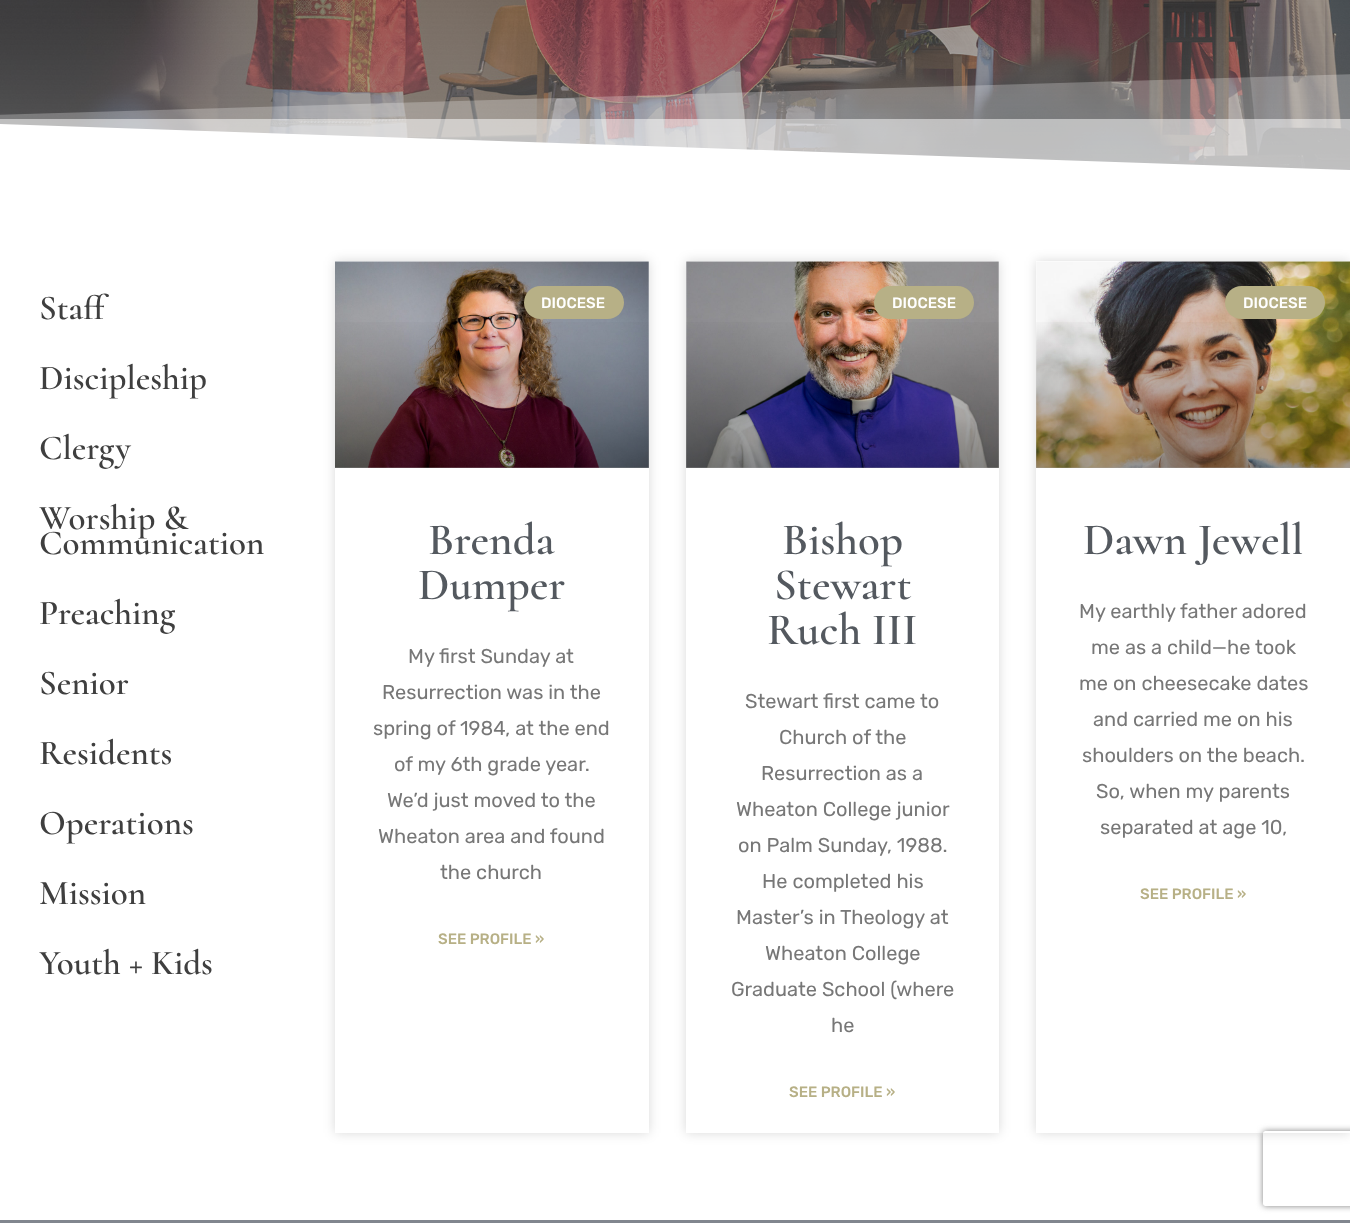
<!DOCTYPE html>
<meta charset="utf-8">
<style>body { margin: 0 } canvas { display: block }</style>
<canvas id="canvas" width="1350" height="1223"></canvas>
<script type="module">
  const canvas = document.getElementById("canvas");
  const g = canvas.getContext("2d");
  g.miterLimit = 4;
  g.fontKerning = "normal";
  function drawText(s, x, y, [font, color]) {
    g.font = font;
    g.fillStyle = color;
    g.fillText(s, x, y);
  }
  function fillBox(x, y, w, h, color) {
    g.fillStyle = color;
    g.fillRect(x, y, w, h);
  }
  function fillRounded(x, y, w, h, r, color) {
    g.fillStyle = color;
    g.beginPath();
    g.roundRect(x, y, w, h, r);
    g.fill();
  }
  async function drawPicture(src, x, y, w, h) {
    const img = new Image();
    img.src = src;
    await img.decode();
    g.drawImage(img, x, y, w, h);
  }
  let gradient;

  const s1 = ["600 35px Cormorant", "#3F3F3F"];
  const s2 = ["500 15px Rubik", "#FFFFFF"];
  const s3 = ["600 45px Cormorant", "#54595F"];
  const s4 = ["20px Rubik", "#777777"];
  const s5 = ["500 15px Rubik", "#B7B086"];

  fillBox(0, 0, 1350, 1223, "#FFFFFF");
  await drawPicture("pic1.png", 0, 0, 1350, 171);
  g.beginPath();
  g.moveTo(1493, 175);
  g.lineTo(-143, 175);
  g.lineTo(-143, 119);
  g.closePath();
  g.fill();
  fillBox(0, 119, 1350, 52, "rgba(255, 255, 255, 0.5)");
  g.fillStyle = "rgba(255, 255, 255, 0.25)";
  g.beginPath();
  g.moveTo(-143, 175);
  g.lineTo(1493, 175);
  g.lineTo(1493, 70);
  g.lineTo(-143, 119);
  g.closePath();
  g.fill();
  drawText("Staff", 39, 319, s1);
  drawText("Discipleship", 39, 389, s1);
  drawText("Clergy", 39, 459, s1);
  drawText("Worship &", 39, 529, s1);
  drawText("Communication", 39, 554, s1);
  drawText("Preaching", 39, 624, s1);
  drawText("Senior", 39, 694, s1);
  drawText("Residents", 39, 764, s1);
  drawText("Operations", 39, 834, s1);
  drawText("Mission", 39, 904, s1);
  drawText("Youth + Kids", 39, 974, s1);
  g.fillStyle = "rgba(0, 0, 0, 0.15)";
  g.filter = "blur(6px)";
  g.beginPath();
  g.rect(335, 261, 314, 872);
  g.fill();
  g.filter = "none";
  fillBox(335, 261, 314, 872, "#FFFFFF");
  await drawPicture("pic2.png", 335, 261, 314, 207);
  gradient = g.createLinearGradient(492, 468, 492, 261);
  gradient.addColorStop(0, "rgba(0, 0, 0, 0.35)");
  gradient.addColorStop(0.75, "rgba(0, 0, 0, 0)");
  g.fillStyle = gradient;
  g.fillRect(335, 322, 314, 146);
  fillRounded(524, 286, 100, 33, 16.5, "#B7B086");
  drawText("DIOCESE", 541, 308, s2);
  drawText("Brenda", 428, 554, s3);
  drawText("Dumper", 418, 599, s3);
  drawText("My first Sunday at", 408, 663, s4);
  drawText("Resurrection was in the", 382, 699, s4);
  drawText("spring of 1984, at the end", 373, 735, s4);
  drawText("of my 6th grade year.", 394, 771, s4);
  drawText("We’d just moved to the", 387, 807, s4);
  drawText("Wheaton area and found", 378, 843, s4);
  drawText("the church", 440, 879, s4);
  drawText("SEE PROFILE »", 438, 944, s5);
  g.fillStyle = "rgba(0, 0, 0, 0.15)";
  g.filter = "blur(6px)";
  g.beginPath();
  g.rect(686, 261, 313, 872);
  g.fill();
  g.filter = "none";
  fillBox(686, 261, 313, 872, "#FFFFFF");
  await drawPicture("pic3.png", 686, 261, 313, 207);
  gradient = g.createLinearGradient(843, 468, 843, 261);
  gradient.addColorStop(0, "rgba(0, 0, 0, 0.35)");
  gradient.addColorStop(0.75, "rgba(0, 0, 0, 0)");
  g.fillStyle = gradient;
  g.fillRect(686, 322, 313, 146);
  fillRounded(874, 286, 100, 33, 16.5, "#B7B086");
  drawText("DIOCESE", 892, 308, s2);
  drawText("Bishop", 782, 554, s3);
  drawText("Stewart", 774, 599, s3);
  drawText("Ruch III", 767, 644, s3);
  drawText("Stewart first came to", 745, 708, s4);
  drawText("Church of the", 779, 744, s4);
  drawText("Resurrection as a", 761, 780, s4);
  drawText("Wheaton College junior", 736, 816, s4);
  drawText("on Palm Sunday, 1988.", 738, 852, s4);
  drawText("He completed his", 762, 888, s4);
  drawText("Master’s in Theology at", 736, 924, s4);
  drawText("Wheaton College", 765, 960, s4);
  drawText("Graduate School (where", 731, 996, s4);
  drawText("he", 831, 1032, s4);
  drawText("SEE PROFILE »", 789, 1097, s5);
  g.fillStyle = "rgba(0, 0, 0, 0.15)";
  g.filter = "blur(6px)";
  g.beginPath();
  g.rect(1036, 261, 314, 872);
  g.fill();
  g.filter = "none";
  fillBox(1036, 261, 314, 872, "#FFFFFF");
  await drawPicture("pic4.png", 1036, 261, 314, 207);
  gradient = g.createLinearGradient(1193, 468, 1193, 261);
  gradient.addColorStop(0, "rgba(0, 0, 0, 0.35)");
  gradient.addColorStop(0.75, "rgba(0, 0, 0, 0)");
  g.fillStyle = gradient;
  g.fillRect(1036, 322, 314, 146);
  fillRounded(1225, 286, 100, 33, 16.5, "#B7B086");
  drawText("DIOCESE", 1243, 308, s2);
  drawText("Dawn Jewell", 1083, 554, s3);
  drawText("My earthly father adored", 1079, 618, s4);
  drawText("me as a child—he took", 1091, 654, s4);
  drawText("me on cheesecake dates", 1079, 690, s4);
  drawText("and carried me on his", 1093, 726, s4);
  drawText("shoulders on the beach.", 1082, 762, s4);
  drawText("So, when my parents", 1096, 798, s4);
  drawText("separated at age 10,", 1100, 834, s4);
  drawText("SEE PROFILE »", 1140, 899, s5);
  fillBox(0, 1220, 1350, 3, "#81868E");
  g.save();
  g.beginPath();
  g.moveTo(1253, 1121);
  g.lineTo(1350, 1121);
  g.lineTo(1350, 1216);
  g.lineTo(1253, 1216);
  g.closePath();
  g.moveTo(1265.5, 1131);
  g.lineTo(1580.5, 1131);
  g.bezierCurveTo(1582, 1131, 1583, 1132, 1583, 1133.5);
  g.lineTo(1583, 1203.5);
  g.bezierCurveTo(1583, 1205, 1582, 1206, 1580.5, 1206);
  g.lineTo(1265.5, 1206);
  g.bezierCurveTo(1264, 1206, 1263, 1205, 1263, 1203.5);
  g.lineTo(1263, 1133.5);
  g.bezierCurveTo(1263, 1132, 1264, 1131, 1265.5, 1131);
  g.closePath();
  g.clip("evenodd");
  g.fillStyle = "#808080";
  g.filter = "blur(3px)";
  g.beginPath();
  g.roundRect(1263, 1131, 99, 75, 2.5);
  g.fill();
  g.filter = "none";
  g.restore();
</script>
